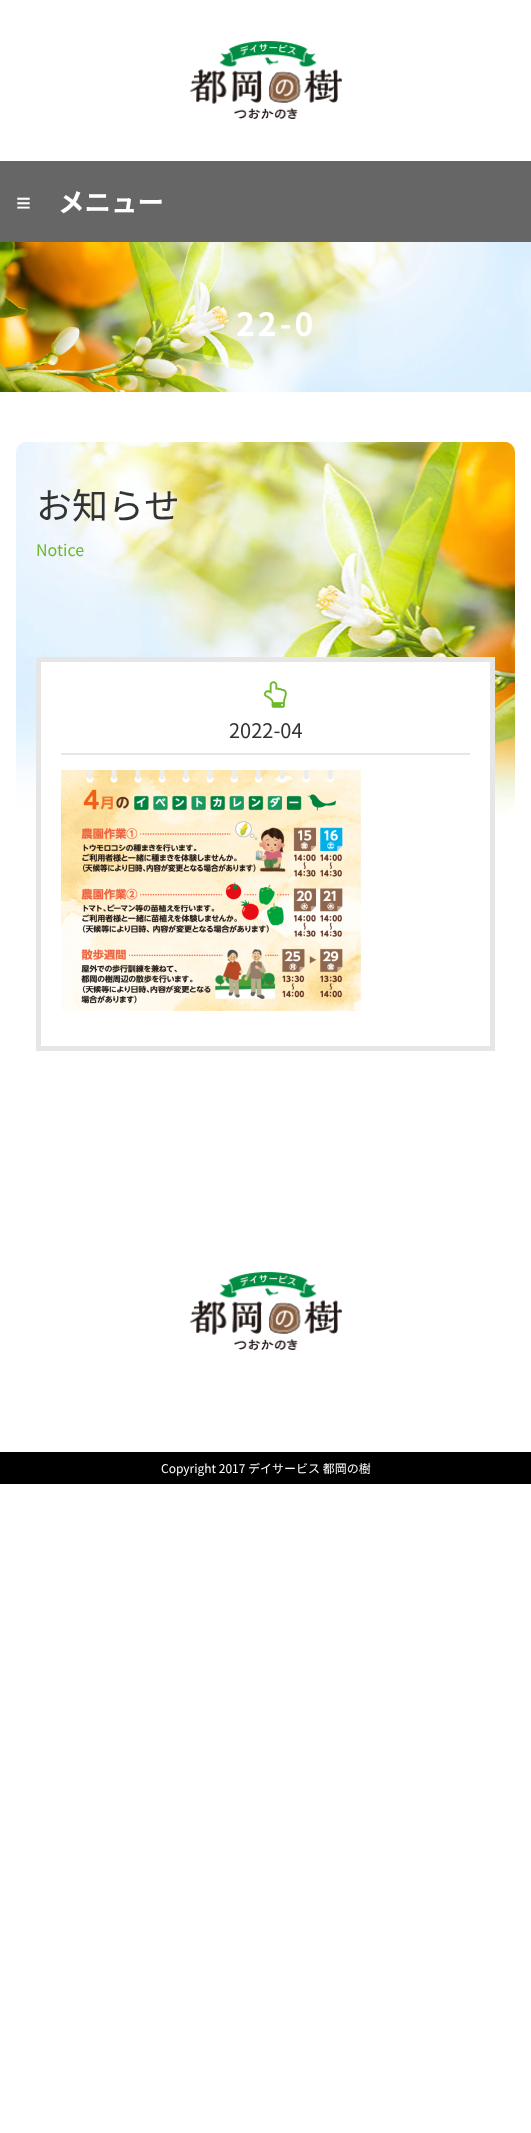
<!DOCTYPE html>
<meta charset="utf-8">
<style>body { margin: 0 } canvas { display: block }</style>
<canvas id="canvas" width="531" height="2133"></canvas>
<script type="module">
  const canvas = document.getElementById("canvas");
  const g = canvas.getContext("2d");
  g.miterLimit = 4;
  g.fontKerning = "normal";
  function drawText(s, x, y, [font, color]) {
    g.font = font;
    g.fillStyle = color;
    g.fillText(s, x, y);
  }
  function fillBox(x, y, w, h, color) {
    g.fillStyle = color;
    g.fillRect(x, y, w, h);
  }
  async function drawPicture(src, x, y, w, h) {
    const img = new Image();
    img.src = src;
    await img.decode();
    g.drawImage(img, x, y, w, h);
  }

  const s1 = ["bold 26.5px Liberation Serif", "#FFFFFF"];
  const s2 = ["bold 26.5px Noto Sans JP", "#FFFFFF"];
  const s3 = ["bold 32px Noto Sans JP", "#FFFFFF"];
  const s4 = ["36px Noto Sans JP", "#333333"];
  const s5 = ["16px Noto Sans JP", "#6EB92B"];
  const s6 = ["20px Noto Sans JP", "#333333"];
  const s7 = ["12px Noto Sans JP", "#FFFFFF"];

  fillBox(0, 0, 531, 2133, "#FFFFFF");
  await drawPicture("pic1.png", 190, 41, 152, 78);
  fillBox(0, 161, 531, 81, "#666666");
  drawText("≡", 16, 212, s1);
  drawText("メニュー", 58, 212, s2);
  await drawPicture("pic2.png", 0, 242, 531, 150);
  g.letterSpacing = "3px";
  drawText("22-0", 236, 336, s3);
  await drawPicture("pic3.png", 16, 442, 499, 376);
  g.letterSpacing = "0px";
  drawText("お知らせ", 36, 519, s4);
  drawText("Notice", 36, 556, s5);
  fillBox(41, 662, 449, 156, "#FFFFFF");
  g.strokeStyle = "#E6E6E6";
  g.lineWidth = 5;
  g.strokeRect(38.5, 659.5, 454, 389);
  fillBox(61, 753, 409, 2, "#E6E6E6");
  await drawPicture("pic4.png", 264, 681, 23, 27);
  drawText("2022-04", 229, 738, s6);
  await drawPicture("pic5.png", 61, 770, 300, 241);
  await drawPicture("pic6.png", 190, 1272, 152, 78);
  fillBox(0, 1452, 531, 32, "#000000");
  drawText("Copyright 2017 デイサービス 都岡の樹", 161, 1473, s7);
</script>
